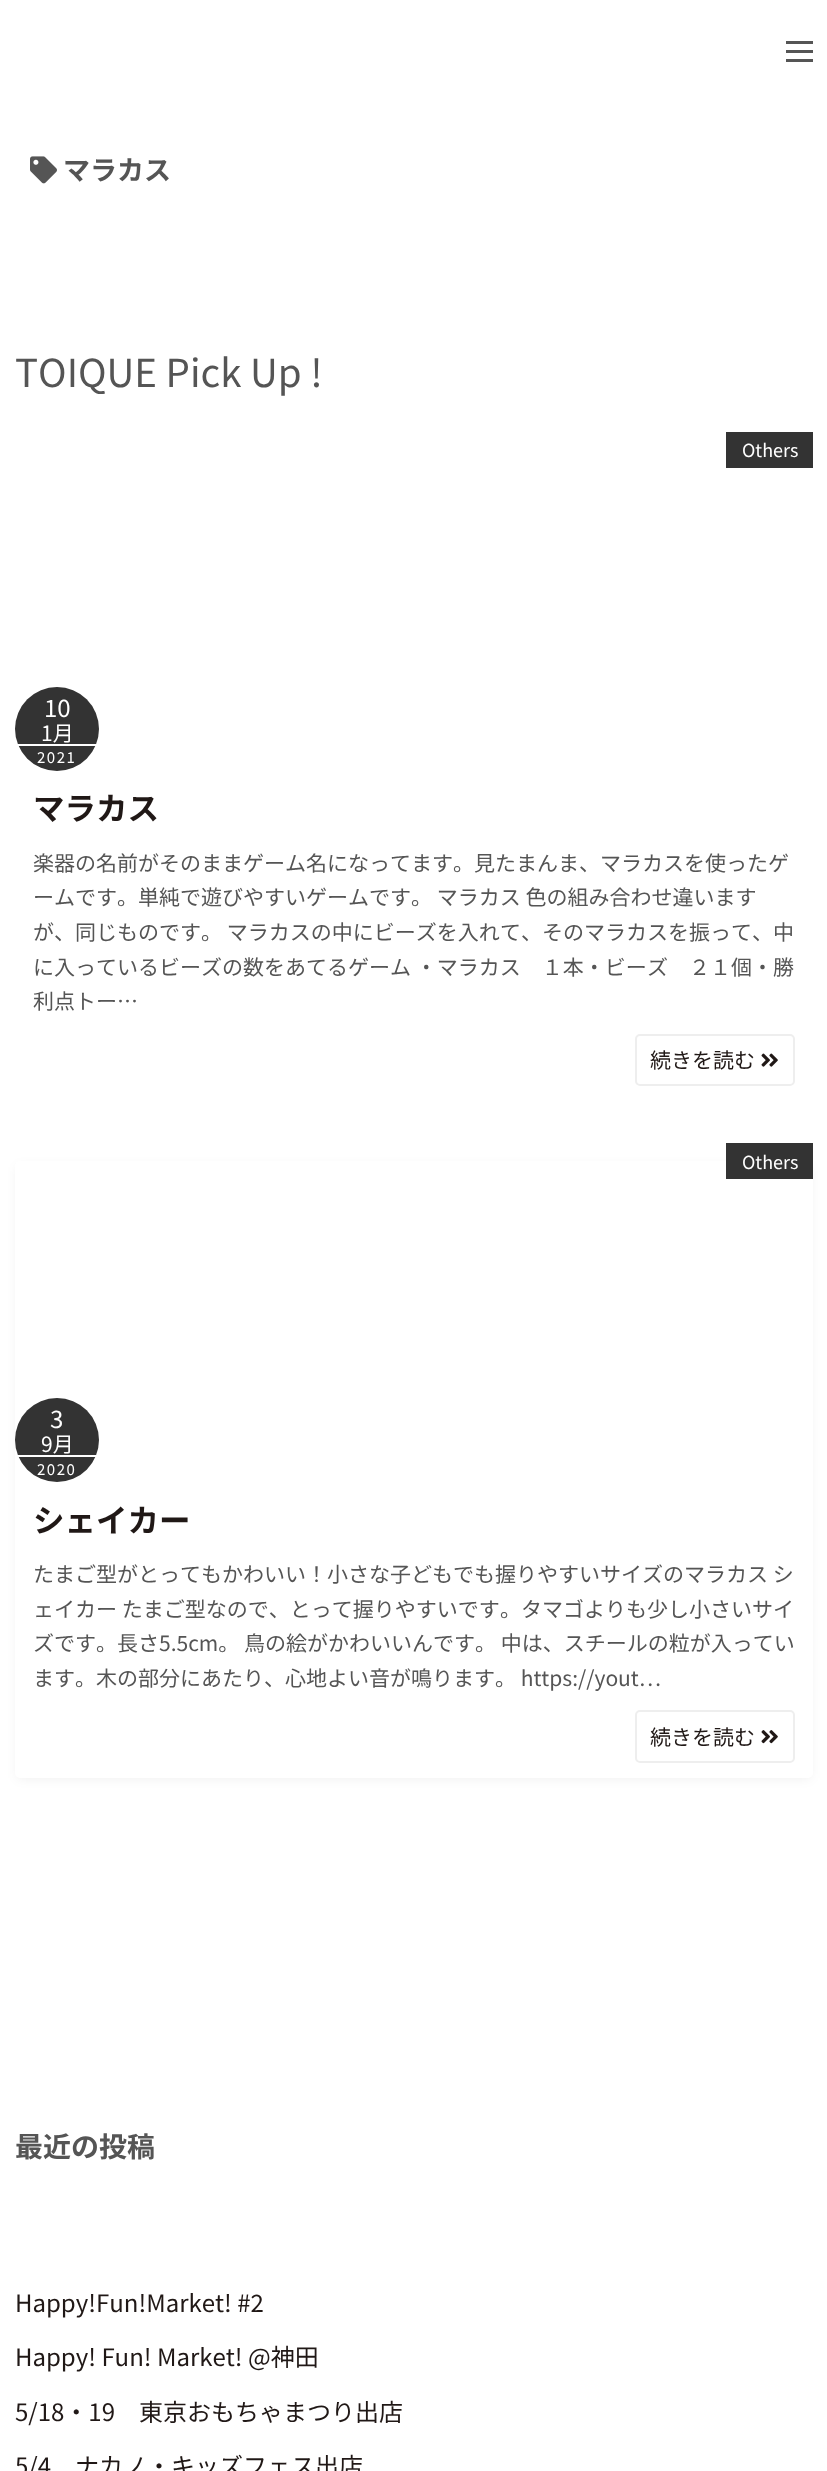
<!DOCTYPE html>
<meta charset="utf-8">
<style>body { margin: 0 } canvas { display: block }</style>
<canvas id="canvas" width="827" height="2471"></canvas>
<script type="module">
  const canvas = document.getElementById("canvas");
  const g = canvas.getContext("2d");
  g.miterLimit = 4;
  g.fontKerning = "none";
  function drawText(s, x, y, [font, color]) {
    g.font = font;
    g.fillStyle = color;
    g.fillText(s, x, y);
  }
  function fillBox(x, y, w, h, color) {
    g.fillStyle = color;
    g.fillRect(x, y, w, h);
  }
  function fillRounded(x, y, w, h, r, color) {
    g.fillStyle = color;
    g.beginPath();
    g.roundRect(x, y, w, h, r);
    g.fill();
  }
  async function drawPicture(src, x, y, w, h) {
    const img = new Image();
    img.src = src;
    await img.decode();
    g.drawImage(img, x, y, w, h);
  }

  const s1 = ["bold 27px Noto Sans JP", "#555555"];
  const s2 = ["38.5px Noto Sans JP", "#555555"];
  const s3 = ["18px Noto Sans JP", "#FFFFFF"];
  const s4 = ["24px Noto Sans JP", "#FFFFFF"];
  const s5 = ["21px Noto Sans JP", "#FFFFFF"];
  const s6 = ["15px Noto Sans JP", "#FFFFFF"];
  const s7 = ["bold 31.5px Noto Sans JP", "#201816"];
  const s8 = ["21px Noto Sans JP", "#555555"];
  const s9 = ["21px Noto Sans JP", "#201816"];
  const s10 = ["bold 28px Noto Sans JP", "#555555"];
  const s11 = ["24px Noto Sans JP", "#201816"];

  fillBox(0, 0, 827, 2471, "#FFFFFF");
  fillBox(786, 50, 27, 3, "#555555");
  fillBox(786, 41, 27, 3, "#555555");
  fillBox(786, 59, 27, 3, "#555555");
  await drawPicture("pic1.png", 30, 156, 27, 28);
  drawText("マラカス", 63, 180, s1);
  drawText("TOIQUE Pick Up !", 15, 387, s2);
  fillBox(726, 432, 87, 36, "#333333");
  drawText("Others", 742, 457, s3);
  g.fillStyle = "#333333";
  g.beginPath();
  g.arc(57, 729, 42, 0, Math.PI * 2);
  g.fill();
  drawText("10", 44, 717, s4);
  drawText("1月", 41, 741, s5);
  fillBox(17, 744, 81, 2, "#FFFFFF");
  g.letterSpacing = "1.5px";
  drawText("2021", 37, 763, s6);
  g.letterSpacing = "0px";
  drawText("マラカス", 33, 820, s7);
  drawText("楽器の名前がそのままゲーム名になってます", 33, 871, s8);
  drawText("。見たまんま、マラカスを使ったゲ", 453, 871, s8);
  drawText("ームです。単純で遊びやすいゲームです", 33, 905, s8);
  drawText("。 マラカス 色の組み合わせ違います", 411, 905, s8);
  drawText("が、同じものです。 マラカスの中にビーズを入れ", 33, 940, s8);
  drawText("て、そのマラカスを振って、中", 500, 940, s8);
  drawText("に入っているビーズの数をあてるゲーム ・マラカス　１本・ビー", 33, 975, s8);
  drawText("ズ　２１個・勝", 647, 975, s8);
  drawText("利点トー…", 33, 1009, s8);
  g.beginPath();
  g.roundRect(636, 1035, 158, 50, 4);
  g.strokeStyle = "#EEEEEE";
  g.lineWidth = 2;
  g.stroke();
  drawText("続きを読む", 650, 1068, s9);
  await drawPicture("pic2.png", 761, 1053, 17, 14);
  g.fillStyle = "rgba(10, 15, 17, 0.07)";
  g.filter = "blur(6px)";
  g.beginPath();
  g.roundRect(18, 1167, 792, 611, 1.5);
  g.fill();
  g.filter = "none";
  fillRounded(15, 1161, 798, 617, 5, "#FFFFFF");
  fillBox(726, 1143, 87, 36, "#333333");
  drawText("Others", 742, 1169, s3);
  g.fillStyle = "#333333";
  g.beginPath();
  g.arc(57, 1440, 42, 0, Math.PI * 2);
  g.fill();
  drawText("3", 50, 1428, s4);
  drawText("9月", 41, 1452, s5);
  fillBox(17, 1455, 81, 2, "#FFFFFF");
  g.letterSpacing = "1.5px";
  drawText("2020", 37, 1475, s6);
  g.letterSpacing = "0px";
  drawText("シェイカー", 33, 1532, s7);
  drawText("たまご型がとってもかわいい！小さな子ども", 33, 1582, s8);
  drawText("でも握りやすいサイズのマラカス シ", 453, 1582, s8);
  drawText("ェイカー たまご型なので、とって握りやすいです", 33, 1617, s8);
  drawText("。タマゴよりも少し小さいサイ", 500, 1617, s8);
  drawText("ズです。長さ5.5cm。 鳥の絵がかわいいんです", 33, 1651, s8);
  drawText("。 中は、スチールの粒が入ってい", 475, 1651, s8);
  drawText("ます。木の部分にあたり、心地よい音が鳴ります", 33, 1686, s8);
  drawText("。 https://yout…", 495, 1686, s8);
  g.beginPath();
  g.roundRect(636, 1711, 158, 51, 4);
  g.stroke();
  drawText("続きを読む", 650, 1745, s9);
  await drawPicture("pic3.png", 761, 1730, 17, 14);
  drawText("最近の投稿", 15, 2157, s10);
  drawText("Happy!Fun!Market! #2", 15, 2312, s11);
  drawText("Happy! Fun! Market! @神田", 15, 2366, s11);
  drawText("5/18・19　東京おもちゃまつり出店", 15, 2421, s11);
  drawText("5/4　ナカノ・キッズフェス出店", 15, 2475, s11);
</script>
